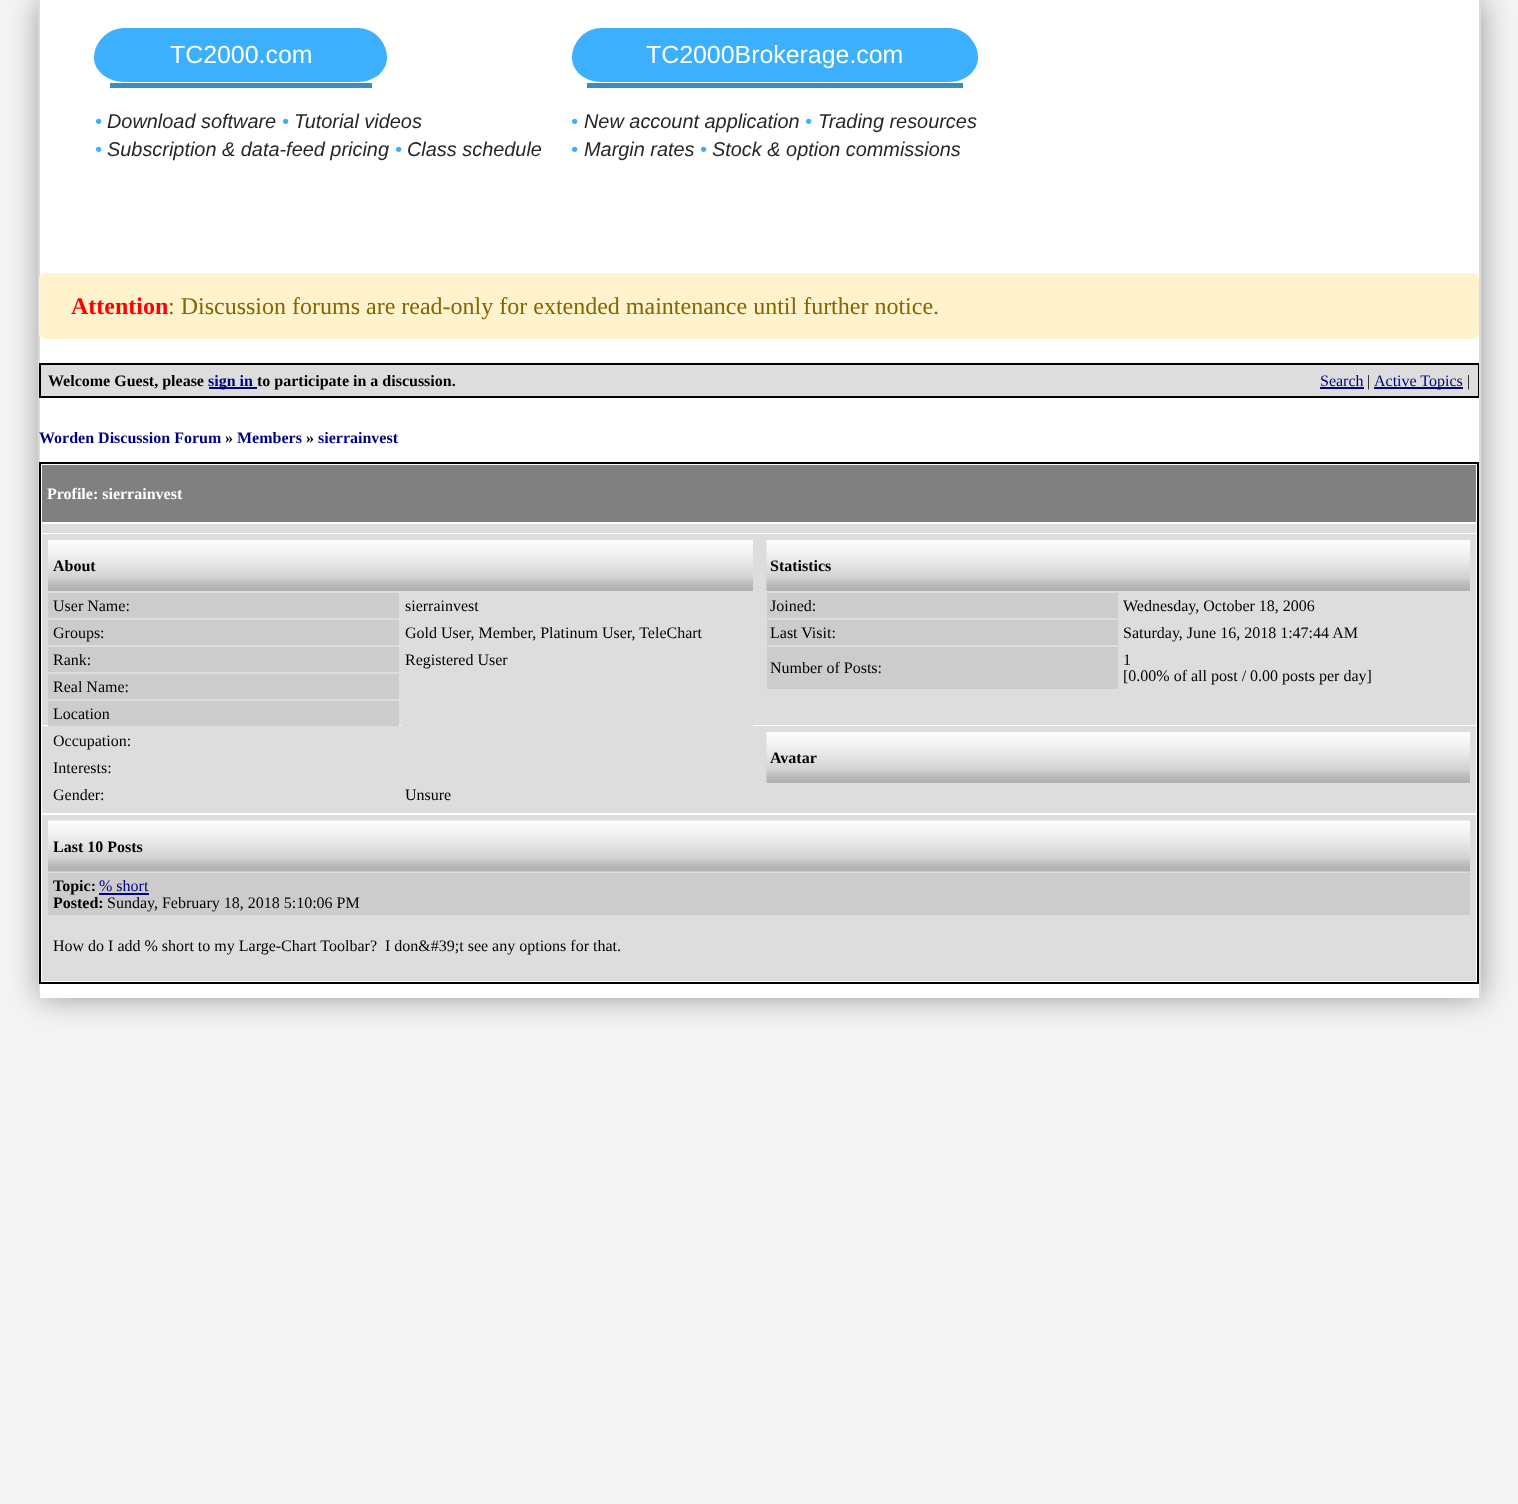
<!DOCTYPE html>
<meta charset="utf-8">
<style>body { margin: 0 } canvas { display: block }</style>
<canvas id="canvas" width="1518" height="1504"></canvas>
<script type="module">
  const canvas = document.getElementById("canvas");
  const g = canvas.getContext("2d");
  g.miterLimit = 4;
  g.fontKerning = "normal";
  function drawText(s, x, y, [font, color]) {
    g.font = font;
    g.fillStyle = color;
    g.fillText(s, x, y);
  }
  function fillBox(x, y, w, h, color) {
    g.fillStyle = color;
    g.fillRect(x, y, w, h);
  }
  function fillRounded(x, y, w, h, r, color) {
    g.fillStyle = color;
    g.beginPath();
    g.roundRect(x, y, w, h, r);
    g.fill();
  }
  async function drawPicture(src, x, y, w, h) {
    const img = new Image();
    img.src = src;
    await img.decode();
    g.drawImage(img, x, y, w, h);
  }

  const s1 = ["24.9px Liberation Sans", "#FFFFFF"];
  const s2 = ["italic 19.9px Liberation Sans", "#3CB0FD"];
  const s3 = ["italic 19.9px Liberation Sans", "#262626"];
  const s4 = ["bold 24px Liberation Serif", "#FF0000"];
  const s5 = ["24px Liberation Serif", "#856404"];
  const s6 = ["bold 16px Liberation Serif", "#000000"];
  const s7 = ["bold 16px Liberation Serif", "#000080"];
  const s8 = ["16px Liberation Serif", "#000080"];
  const s9 = ["16px Liberation Serif", "#000000"];
  const s10 = ["bold 16px Liberation Serif", "#FFFFFF"];

  fillBox(0, 0, 1518, 1504, "#F4F4F4");
  g.fillStyle = "#999999";
  g.filter = "blur(15px)";
  g.beginPath();
  g.rect(39, 0, 1443, 998);
  g.fill();
  g.filter = "none";
  fillBox(40, 0, 1439, 998, "#FFFFFF");
  fillBox(1479, 0, 2, 998, "#DCDCDC");
  fillBox(38, 0, 2, 998, "#DCDCDC");
  g.fillStyle = "#3CB0FD";
  g.beginPath();
  g.moveTo(124, 28);
  g.lineTo(358, 28);
  g.bezierCurveTo(374, 28, 387, 42, 387, 58);
  g.bezierCurveTo(387, 71, 374, 82, 358, 82);
  g.lineTo(124, 82);
  g.bezierCurveTo(108, 82, 94, 71, 94, 58);
  g.bezierCurveTo(94, 42, 108, 28, 124, 28);
  g.closePath();
  g.fill();
  fillBox(110, 83, 262, 5, "#3C8CC2");
  drawText("TC2000.com", 170, 63, s1);
  drawText("•", 95, 128, s2);
  drawText("Download software", 107, 128, s3);
  drawText("•", 282, 128, s2);
  drawText("Tutorial videos", 294, 128, s3);
  drawText("•", 95, 156, s2);
  drawText("Subscription & data-feed pricing", 107, 156, s3);
  drawText("•", 395, 156, s2);
  drawText("Class schedule", 407, 156, s3);
  g.fillStyle = "#3CB0FD";
  g.beginPath();
  g.moveTo(601, 28);
  g.lineTo(949, 28);
  g.bezierCurveTo(965, 28, 978, 42, 978, 58);
  g.bezierCurveTo(978, 71, 965, 82, 949, 82);
  g.lineTo(601, 82);
  g.bezierCurveTo(585, 82, 572, 71, 572, 58);
  g.bezierCurveTo(572, 42, 585, 28, 601, 28);
  g.closePath();
  g.fill();
  fillBox(587, 83, 376, 5, "#3C8CC2");
  drawText("TC2000Brokerage.com", 646, 63, s1);
  drawText("•", 571, 128, s2);
  drawText("New account application", 584, 128, s3);
  drawText("•", 805, 128, s2);
  drawText("Trading resources", 818, 128, s3);
  drawText("•", 571, 156, s2);
  drawText("Margin rates", 584, 156, s3);
  drawText("•", 700, 156, s2);
  drawText("Stock & option commissions", 712, 156, s3);
  fillRounded(39, 273, 1440, 66, 6, "#FFF3CD");
  drawText("Attention", 71, 314, s4);
  drawText(": Discussion forums are read-only for extended maintenance until further notice.", 168, 314, s5);
  g.strokeStyle = "#000000";
  g.lineWidth = 2;
  g.strokeRect(40, 364, 1438, 33);
  fillBox(41, 365, 1437, 31, "#DDDDDD");
  drawText("Welcome Guest, please", 48, 386, s6);
  fillBox(209, 387, 48, 2, "#000080");
  drawText("sign in", 208, 386, s7);
  drawText("to participate in a discussion.", 257, 386, s6);
  drawText("Search", 1320, 386, s8);
  fillBox(1320, 387, 44, 2, "#000080");
  drawText("|", 1367, 386, s9);
  fillBox(1374, 387, 89, 2, "#000080");
  drawText("Active Topics", 1374, 386, s8);
  drawText("|", 1467, 386, s9);
  drawText("Worden Discussion Forum", 39, 443, s7);
  drawText("»", 225, 443, s6);
  drawText("Members", 237, 443, s7);
  drawText("»", 306, 443, s6);
  drawText("sierrainvest", 318, 443, s7);
  g.strokeRect(40, 463, 1438, 520);
  fillBox(42, 465, 1434, 57, "#808080");
  drawText("Profile: sierrainvest", 47, 499, s10);
  fillBox(42, 524, 1434, 9, "#DDDDDD");
  fillBox(42, 534, 1434, 191, "#DDDDDD");
  await drawPicture("pic1.png", 48, 540, 705, 51);
  drawText("About", 53, 571, s6);
  fillBox(48, 593, 351, 25, "#CCCCCC");
  drawText("User Name:", 53, 611, s9);
  drawText("sierrainvest", 405, 611, s9);
  fillBox(48, 620, 351, 25, "#CCCCCC");
  drawText("Groups:", 53, 638, s9);
  drawText("Gold User, Member, Platinum User, TeleChart", 405, 638, s9);
  fillBox(48, 647, 351, 25, "#CCCCCC");
  drawText("Rank:", 53, 665, s9);
  drawText("Registered User", 405, 665, s9);
  fillBox(48, 674, 351, 25, "#CCCCCC");
  drawText("Real Name:", 53, 692, s9);
  fillBox(48, 701, 351, 25, "#CCCCCC");
  drawText("Location", 53, 719, s9);
  fillBox(401, 725, 352, 1, "#DDDDDD");
  fillBox(42, 726, 1434, 87, "#DDDDDD");
  drawText("Occupation:", 53, 746, s9);
  drawText("Interests:", 53, 773, s9);
  drawText("Gender:", 53, 800, s9);
  drawText("Unsure", 405, 800, s9);
  await drawPicture("pic2.png", 766, 540, 704, 51);
  drawText("Statistics", 770, 571, s6);
  fillBox(767, 593, 351, 25, "#CCCCCC");
  drawText("Joined:", 770, 611, s9);
  drawText("Wednesday, October 18, 2006", 1123, 611, s9);
  fillBox(767, 620, 351, 25, "#CCCCCC");
  drawText("Last Visit:", 770, 638, s9);
  drawText("Saturday, June 16, 2018 1:47:44 AM", 1123, 638, s9);
  fillBox(767, 647, 351, 42, "#CCCCCC");
  drawText("Number of Posts:", 770, 673, s9);
  drawText("1", 1123, 665, s9);
  drawText("[0.00% of all post / 0.00 posts per day]", 1123, 681, s9);
  await drawPicture("pic2.png", 766, 732, 704, 51);
  drawText("Avatar", 770, 763, s6);
  fillBox(42, 815, 1434, 166, "#DDDDDD");
  await drawPicture("pic3.png", 48, 820, 1422, 52);
  drawText("Last 10 Posts", 53, 852, s6);
  fillBox(48, 873, 1422, 42, "#CCCCCC");
  drawText("Topic:", 53, 891, s6);
  drawText("% short", 99, 891, s8);
  fillBox(99, 893, 50, 2, "#000080");
  drawText("Posted:", 53, 908, s6);
  drawText("Sunday, February 18, 2018 5:10:06 PM", 107, 908, s9);
  drawText("How do I add % short to my Large-Chart Toolbar?  I don&#39;t see any options for that.", 53, 951, s9);
</script>
